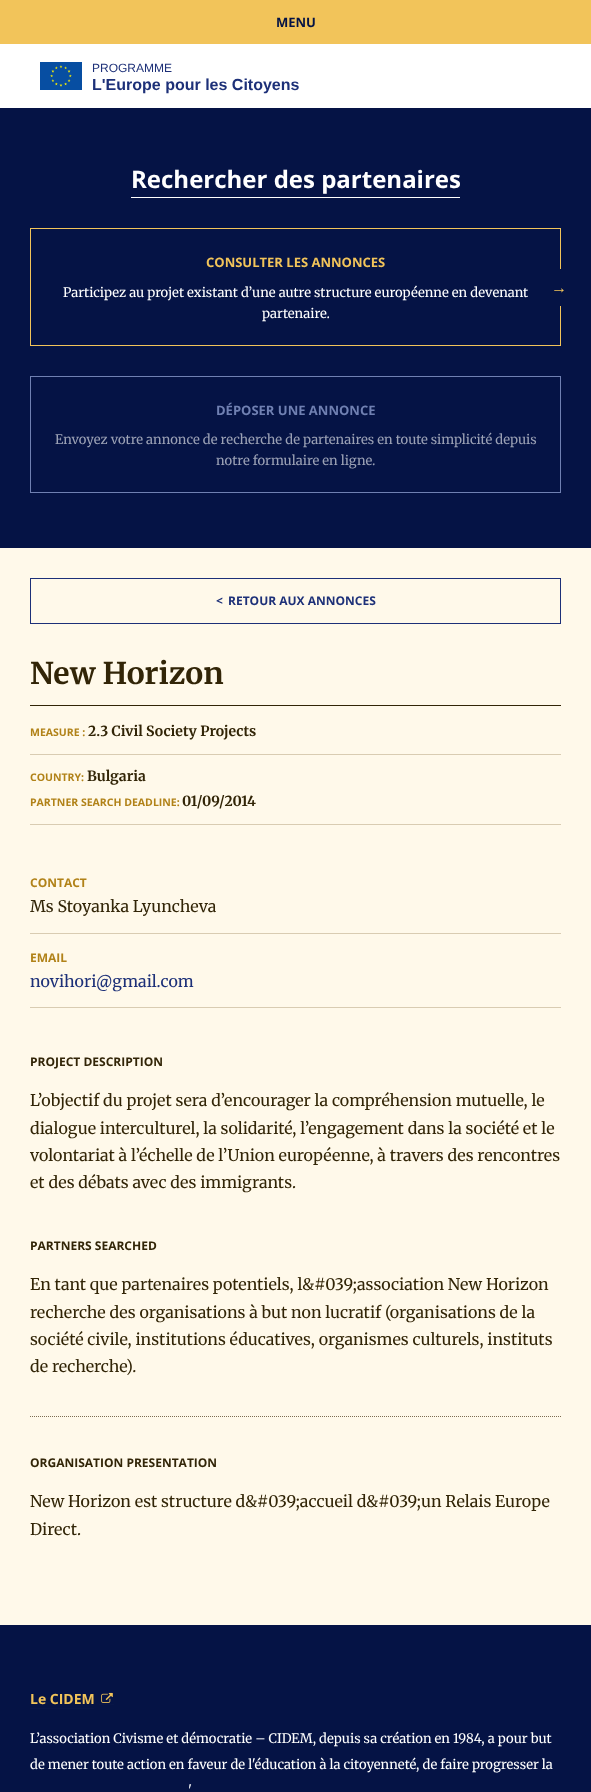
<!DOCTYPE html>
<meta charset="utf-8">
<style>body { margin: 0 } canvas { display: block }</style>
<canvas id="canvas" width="591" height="1792"></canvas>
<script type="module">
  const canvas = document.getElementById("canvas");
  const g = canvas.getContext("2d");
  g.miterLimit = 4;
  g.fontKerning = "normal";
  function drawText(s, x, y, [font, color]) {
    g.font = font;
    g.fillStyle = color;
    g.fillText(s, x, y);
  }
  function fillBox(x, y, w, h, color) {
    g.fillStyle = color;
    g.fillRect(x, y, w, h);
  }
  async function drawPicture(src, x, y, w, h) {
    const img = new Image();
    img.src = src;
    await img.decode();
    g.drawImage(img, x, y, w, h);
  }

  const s1 = ["bold 13px Open Sans", "#051345"];
  const s2 = ["12px Liberation Sans", "#1D3078"];
  const s3 = ["bold 16px Liberation Sans", "#1D3078"];
  const s4 = ["bold 24px Open Sans", "#FFFFFF"];
  const s5 = ["bold 13px Open Sans", "#F2C45A"];
  const s6 = ["13px Merriweather", "#FFFFFF"];
  const s7 = ["bold 16px Liberation Sans", "#F2C45A"];
  const s8 = ["bold 13px Open Sans", "#7080B2"];
  const s9 = ["13px Merriweather", "#9BA1B5"];
  const s10 = ["bold 12px Open Sans", "#1D3078"];
  const s11 = ["bold 30px Merriweather", "#322507"];
  const s12 = ["bold 10.5px Open Sans", "#B18218"];
  const s13 = ["bold 14px Merriweather", "#322507"];
  const s14 = ["bold 12px Open Sans", "#B18218"];
  const s15 = ["16px Merriweather", "#322507"];
  const s16 = ["16px Merriweather", "#1D3078"];
  const s17 = ["bold 12px Open Sans", "#322507"];
  const s18 = ["bold 14px Open Sans", "#F2C45A"];

  fillBox(0, 0, 591, 1792, "#051345");
  fillBox(0, 44, 591, 64, "#FFFFFF");
  fillBox(0, 0, 591, 44, "#F2C45A");
  drawText("MENU", 276, 27, s1);
  await drawPicture("pic1.png", 40, 62, 42, 28);
  drawText("PROGRAMME", 92, 72, s2);
  drawText("L'Europe pour les Citoyens", 92, 90, s3);
  fillBox(131, 197, 329, 1, "#FFFFFF");
  drawText("Rechercher des partenaires", 131, 188, s4);
  g.strokeStyle = "#F2C45A";
  g.strokeRect(30.5, 228.5, 530, 117);
  drawText("CONSULTER LES ANNONCES", 206, 267, s5);
  drawText("Participez au projet existant d’une autre structure européenne en devenant", 63, 297, s6);
  drawText("partenaire.", 262, 318, s6);
  fillBox(560, 269, 1, 37, "#051345");
  drawText("→", 551, 293, s7);
  g.strokeStyle = "#7080B2";
  g.strokeRect(30.5, 376.5, 530, 116);
  drawText("DÉPOSER UNE ANNONCE", 216, 415, s8);
  drawText("Envoyez votre annonce de recherche de partenaires en toute simplicité depuis", 55, 444, s9);
  drawText("notre formulaire en ligne.", 216, 465, s9);
  fillBox(0, 548, 591, 1077, "#FFF9EA");
  g.strokeStyle = "#1D3078";
  g.strokeRect(30.5, 578.5, 530, 45);
  drawText("<", 216, 605, s10);
  drawText("RETOUR AUX ANNONCES", 228, 605, s10);
  fillBox(30, 705, 531, 1, "#322507");
  drawText("New Horizon", 30, 684, s11);
  drawText("MEASURE :", 30, 736, s12);
  drawText("2.3 Civil Society Projects", 88, 736, s13);
  fillBox(30, 754, 531, 1, "#D9CCB2");
  fillBox(30, 824, 531, 1, "#D9CCB2");
  drawText("COUNTRY:", 30, 781, s12);
  drawText("Bulgaria", 87, 781, s13);
  drawText("PARTNER SEARCH DEADLINE:", 30, 806, s12);
  drawText("01/09/2014", 182, 806, s13);
  fillBox(30, 933, 531, 1, "#D9CCB2");
  drawText("CONTACT", 30, 887, s14);
  drawText("Ms Stoyanka Lyuncheva", 30, 912, s15);
  fillBox(30, 1007, 531, 1, "#D9CCB2");
  drawText("EMAIL", 30, 962, s14);
  drawText("novihori@gmail.com", 30, 987, s16);
  drawText("PROJECT DESCRIPTION", 30, 1066, s17);
  drawText("L’objectif du projet sera d’encourager la compréhension mutuelle, le", 30, 1106, s15);
  drawText("dialogue interculturel, la solidarité, l’engagement dans la société et le", 30, 1134, s15);
  drawText("volontariat à l’échelle de l’Union européenne, à travers des rencontres", 30, 1161, s15);
  drawText("et des débats avec des immigrants.", 30, 1188, s15);
  drawText("PARTNERS SEARCHED", 30, 1250, s17);
  drawText("En tant que partenaires potentiels, l&#039;association New Horizon", 30, 1290, s15);
  drawText("recherche des organisations à but non lucratif (organisations de la", 30, 1318, s15);
  drawText("société civile, institutions éducatives, organismes culturels, instituts", 30, 1345, s15);
  drawText("de recherche).", 30, 1372, s15);
  g.beginPath();
  g.moveTo(30, 1416.5);
  g.lineTo(561, 1416.5);
  g.strokeStyle = "#7C6D52";
  g.setLineDash([1, 1]);
  g.stroke();
  drawText("ORGANISATION PRESENTATION", 30, 1467, s17);
  drawText("New Horizon est structure d&#039;accueil d&#039;un Relais Europe", 30, 1507, s15);
  drawText("Direct.", 30, 1535, s15);
  fillBox(30, 1708, 64, 1, "#081547");
  fillBox(99, 1704, 15, 1, "#081547");
  drawText("Le CIDEM", 30, 1704, s18);
  await drawPicture("pic2.png", 101, 1692, 12, 11);
  drawText("L’association Civisme et démocratie – CIDEM, depuis sa création en 1984, a pour but", 30, 1743, s6);
  drawText("de mener toute action en faveur de l'éducation à la citoyenneté, de faire progresser la", 30, 1769, s6);
  drawText("'", 188, 1795, s6);
</script>
